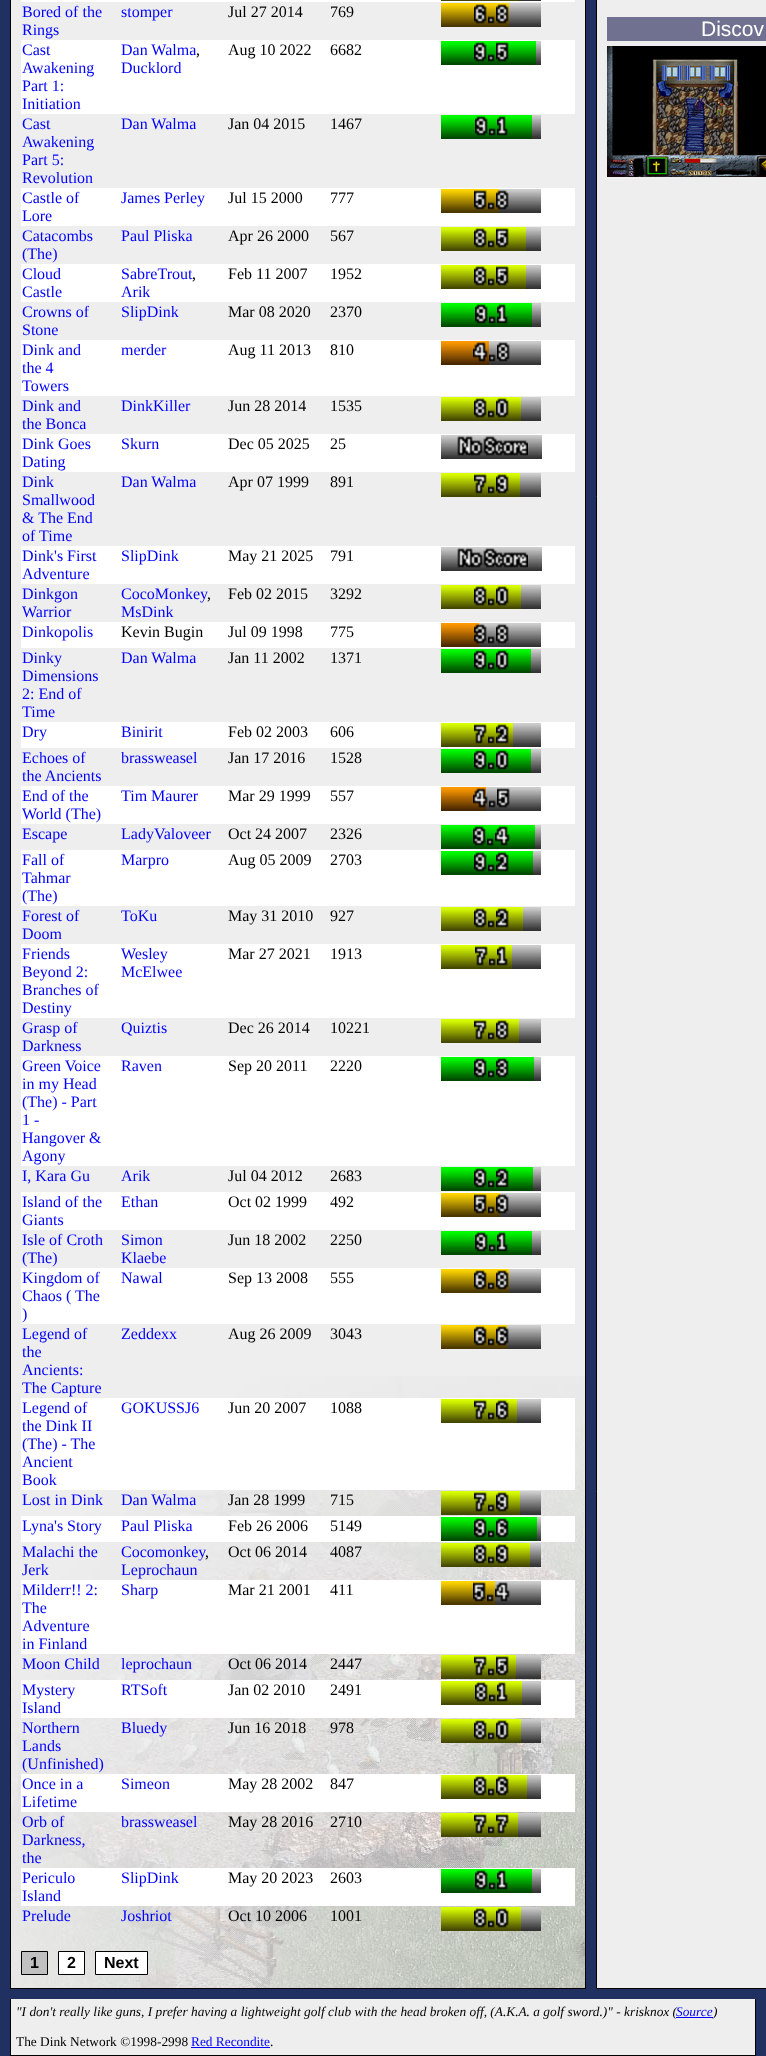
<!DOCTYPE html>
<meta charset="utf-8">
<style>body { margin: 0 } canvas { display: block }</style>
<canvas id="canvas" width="766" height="2056"></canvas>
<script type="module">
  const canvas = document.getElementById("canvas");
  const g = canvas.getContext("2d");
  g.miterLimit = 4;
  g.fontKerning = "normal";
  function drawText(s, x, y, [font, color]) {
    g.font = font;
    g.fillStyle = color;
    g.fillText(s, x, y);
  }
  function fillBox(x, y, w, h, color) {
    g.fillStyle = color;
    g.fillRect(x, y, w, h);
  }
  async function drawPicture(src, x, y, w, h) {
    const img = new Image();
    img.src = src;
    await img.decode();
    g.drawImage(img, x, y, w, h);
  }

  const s1 = ["16px Liberation Serif", "#0000FF"];
  const s2 = ["16px Liberation Serif", "#000000"];
  const s3 = ["bold 16px Liberation Sans", "#000000"];
  const s4 = ["21px Liberation Sans", "#FFFFFF"];
  const s5 = ["italic 13.35px Liberation Serif", "#000000"];
  const s6 = ["italic 13.35px Liberation Serif", "#0000FF"];
  const s7 = ["13.35px Liberation Serif", "#000000"];
  const s8 = ["13.35px Liberation Serif", "#0000FF"];

  fillBox(0, 0, 766, 2056, "#203060");
  fillBox(11, 0, 574, 1376, "#EEEEEE");
  await drawPicture("pic1.png", 11, 1376, 574, 612);
  g.strokeStyle = "#000000";
  g.strokeRect(10.5, -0.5, 575, 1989);
  fillBox(21, 0, 554, 2, "#FFFFFF");
  fillBox(441, 0, 78, 1, "#434700");
  fillBox(519, 0, 22, 1, "#333333");
  drawText("Bored of the", 22, 17, s1);
  drawText("Rings", 22, 35, s1);
  drawText("stomper", 121, 17, s1);
  drawText("Jul 27 2014", 228, 17, s2);
  drawText("769", 330, 17, s2);
  await drawPicture("pic2.png", 441, 3, 68, 24);
  await drawPicture("pic3.png", 509, 3, 32, 24);
  await drawPicture("pic4.png", 474, 4, 13, 20);
  await drawPicture("pic5.png", 488, 16, 7, 8);
  await drawPicture("pic6.png", 496, 4, 13, 20);
  fillBox(21, 40, 554, 74, "#FFFFFF");
  drawText("Cast", 22, 55, s1);
  drawText("Awakening", 22, 73, s1);
  drawText("Part 1:", 22, 91, s1);
  drawText("Initiation", 22, 109, s1);
  drawText("Dan Walma", 121, 55, s1);
  drawText(",", 196, 55, s2);
  drawText("Ducklord", 121, 73, s1);
  drawText("Aug 10 2022", 228, 55, s2);
  drawText("6682", 330, 55, s2);
  await drawPicture("pic7.png", 441, 41, 95, 24);
  await drawPicture("pic8.png", 536, 41, 5, 24);
  await drawPicture("pic9.png", 474, 42, 13, 20);
  await drawPicture("pic10.png", 488, 54, 7, 8);
  await drawPicture("pic11.png", 496, 42, 13, 20);
  drawText("Cast", 22, 129, s1);
  drawText("Awakening", 22, 147, s1);
  drawText("Part 5:", 22, 165, s1);
  drawText("Revolution", 22, 183, s1);
  drawText("Dan Walma", 121, 129, s1);
  drawText("Jan 04 2015", 228, 129, s2);
  drawText("1467", 330, 129, s2);
  await drawPicture("pic12.png", 441, 115, 91, 24);
  await drawPicture("pic13.png", 532, 115, 9, 24);
  await drawPicture("pic9.png", 475, 116, 13, 20);
  await drawPicture("pic10.png", 489, 128, 7, 8);
  await drawPicture("pic14.png", 497, 116, 11, 20);
  fillBox(21, 188, 554, 38, "#FFFFFF");
  drawText("Castle of", 22, 203, s1);
  drawText("Lore", 22, 221, s1);
  drawText("James Perley", 121, 203, s1);
  drawText("Jul 15 2000", 228, 203, s2);
  drawText("777", 330, 203, s2);
  await drawPicture("pic15.png", 441, 189, 58, 24);
  await drawPicture("pic16.png", 499, 189, 42, 24);
  await drawPicture("pic17.png", 474, 190, 13, 20);
  await drawPicture("pic5.png", 488, 202, 7, 8);
  await drawPicture("pic18.png", 496, 190, 13, 20);
  drawText("Catacombs", 22, 241, s1);
  drawText("(The)", 22, 259, s1);
  drawText("Paul Pliska", 121, 241, s1);
  drawText("Apr 26 2000", 228, 241, s2);
  drawText("567", 330, 241, s2);
  await drawPicture("pic19.png", 441, 227, 85, 24);
  await drawPicture("pic20.png", 526, 227, 15, 24);
  await drawPicture("pic21.png", 474, 228, 13, 20);
  await drawPicture("pic22.png", 488, 240, 7, 8);
  await drawPicture("pic23.png", 496, 228, 13, 20);
  fillBox(21, 264, 554, 38, "#FFFFFF");
  drawText("Cloud", 22, 279, s1);
  drawText("Castle", 22, 297, s1);
  drawText("SabreTrout", 121, 279, s1);
  drawText(",", 192, 279, s2);
  drawText("Arik", 121, 297, s1);
  drawText("Feb 11 2007", 228, 279, s2);
  drawText("1952", 330, 279, s2);
  await drawPicture("pic19.png", 441, 265, 85, 24);
  await drawPicture("pic20.png", 526, 265, 15, 24);
  await drawPicture("pic21.png", 474, 266, 13, 20);
  await drawPicture("pic22.png", 488, 278, 7, 8);
  await drawPicture("pic23.png", 496, 266, 13, 20);
  drawText("Crowns of", 22, 317, s1);
  drawText("Stone", 22, 335, s1);
  drawText("SlipDink", 121, 317, s1);
  drawText("Mar 08 2020", 228, 317, s2);
  drawText("2370", 330, 317, s2);
  await drawPicture("pic12.png", 441, 303, 91, 24);
  await drawPicture("pic13.png", 532, 303, 9, 24);
  await drawPicture("pic9.png", 475, 304, 13, 20);
  await drawPicture("pic10.png", 489, 316, 7, 8);
  await drawPicture("pic14.png", 497, 304, 11, 20);
  fillBox(21, 340, 554, 56, "#FFFFFF");
  drawText("Dink and", 22, 355, s1);
  drawText("the 4", 22, 373, s1);
  drawText("Towers", 22, 391, s1);
  drawText("merder", 121, 355, s1);
  drawText("Aug 11 2013", 228, 355, s2);
  drawText("810", 330, 355, s2);
  await drawPicture("pic24.png", 441, 341, 48, 24);
  await drawPicture("pic25.png", 489, 341, 52, 24);
  await drawPicture("pic26.png", 473, 342, 15, 20);
  await drawPicture("pic27.png", 489, 354, 7, 8);
  await drawPicture("pic28.png", 497, 342, 13, 20);
  drawText("Dink and", 22, 411, s1);
  drawText("the Bonca", 22, 429, s1);
  drawText("DinkKiller", 121, 411, s1);
  drawText("Jun 28 2014", 228, 411, s2);
  drawText("1535", 330, 411, s2);
  await drawPicture("pic29.png", 441, 397, 80, 24);
  await drawPicture("pic30.png", 521, 397, 20, 24);
  await drawPicture("pic21.png", 474, 398, 13, 20);
  await drawPicture("pic22.png", 488, 410, 7, 8);
  await drawPicture("pic31.png", 496, 398, 13, 20);
  fillBox(21, 434, 554, 38, "#FFFFFF");
  drawText("Dink Goes", 22, 449, s1);
  drawText("Dating", 22, 467, s1);
  drawText("Skurn", 121, 449, s1);
  drawText("Dec 05 2025", 228, 449, s2);
  drawText("25", 330, 449, s2);
  await drawPicture("pic32.png", 441, 435, 1, 24);
  await drawPicture("pic33.png", 442, 435, 100, 24);
  await drawPicture("pic34.png", 457, 436, 71, 20);
  drawText("Dink", 22, 487, s1);
  drawText("Smallwood", 22, 505, s1);
  drawText("& The End", 22, 523, s1);
  drawText("of Time", 22, 541, s1);
  drawText("Dan Walma", 121, 487, s1);
  drawText("Apr 07 1999", 228, 487, s2);
  drawText("891", 330, 487, s2);
  await drawPicture("pic35.png", 441, 473, 79, 24);
  await drawPicture("pic36.png", 520, 473, 21, 24);
  await drawPicture("pic37.png", 474, 474, 13, 20);
  await drawPicture("pic22.png", 488, 486, 7, 8);
  await drawPicture("pic38.png", 496, 474, 13, 20);
  fillBox(21, 546, 554, 38, "#FFFFFF");
  drawText("Dink's First", 22, 561, s1);
  drawText("Adventure", 22, 579, s1);
  drawText("SlipDink", 121, 561, s1);
  drawText("May 21 2025", 228, 561, s2);
  drawText("791", 330, 561, s2);
  await drawPicture("pic32.png", 441, 547, 1, 24);
  await drawPicture("pic33.png", 442, 547, 100, 24);
  await drawPicture("pic34.png", 457, 548, 71, 20);
  drawText("Dinkgon", 22, 599, s1);
  drawText("Warrior", 22, 617, s1);
  drawText("CocoMonkey", 121, 599, s1);
  drawText(",", 207, 599, s2);
  drawText("MsDink", 121, 617, s1);
  drawText("Feb 02 2015", 228, 599, s2);
  drawText("3292", 330, 599, s2);
  await drawPicture("pic29.png", 441, 585, 80, 24);
  await drawPicture("pic30.png", 521, 585, 20, 24);
  await drawPicture("pic21.png", 474, 586, 13, 20);
  await drawPicture("pic22.png", 488, 598, 7, 8);
  await drawPicture("pic31.png", 496, 586, 13, 20);
  fillBox(21, 622, 554, 26, "#FFFFFF");
  drawText("Dinkopolis", 22, 637, s1);
  drawText("Kevin Bugin", 121, 637, s2);
  drawText("Jul 09 1998", 228, 637, s2);
  drawText("775", 330, 637, s2);
  await drawPicture("pic39.png", 441, 623, 38, 24);
  await drawPicture("pic40.png", 479, 623, 62, 24);
  await drawPicture("pic41.png", 474, 624, 13, 20);
  await drawPicture("pic27.png", 488, 636, 7, 8);
  await drawPicture("pic28.png", 496, 624, 13, 20);
  drawText("Dinky", 22, 663, s1);
  drawText("Dimensions", 22, 681, s1);
  drawText("2: End of", 22, 699, s1);
  drawText("Time", 22, 717, s1);
  drawText("Dan Walma", 121, 663, s1);
  drawText("Jan 11 2002", 228, 663, s2);
  drawText("1371", 330, 663, s2);
  await drawPicture("pic42.png", 441, 649, 90, 24);
  await drawPicture("pic43.png", 531, 649, 10, 24);
  await drawPicture("pic9.png", 474, 650, 13, 20);
  await drawPicture("pic10.png", 488, 662, 7, 8);
  await drawPicture("pic44.png", 496, 650, 13, 20);
  fillBox(21, 722, 554, 26, "#FFFFFF");
  drawText("Dry", 22, 737, s1);
  drawText("Binirit", 121, 737, s1);
  drawText("Feb 02 2003", 228, 737, s2);
  drawText("606", 330, 737, s2);
  await drawPicture("pic45.png", 441, 723, 72, 24);
  await drawPicture("pic46.png", 513, 723, 28, 24);
  await drawPicture("pic37.png", 474, 724, 13, 20);
  await drawPicture("pic22.png", 488, 736, 7, 8);
  await drawPicture("pic47.png", 496, 724, 13, 20);
  drawText("Echoes of", 22, 763, s1);
  drawText("the Ancients", 22, 781, s1);
  drawText("brassweasel", 121, 763, s1);
  drawText("Jan 17 2016", 228, 763, s2);
  drawText("1528", 330, 763, s2);
  await drawPicture("pic42.png", 441, 749, 90, 24);
  await drawPicture("pic43.png", 531, 749, 10, 24);
  await drawPicture("pic9.png", 474, 750, 13, 20);
  await drawPicture("pic10.png", 488, 762, 7, 8);
  await drawPicture("pic44.png", 496, 750, 13, 20);
  fillBox(21, 786, 554, 38, "#FFFFFF");
  drawText("End of the", 22, 801, s1);
  drawText("World (The)", 22, 819, s1);
  drawText("Tim Maurer", 121, 801, s1);
  drawText("Mar 29 1999", 228, 801, s2);
  drawText("557", 330, 801, s2);
  await drawPicture("pic48.png", 441, 787, 45, 24);
  await drawPicture("pic49.png", 486, 787, 55, 24);
  await drawPicture("pic50.png", 473, 788, 15, 20);
  await drawPicture("pic27.png", 489, 800, 7, 8);
  await drawPicture("pic51.png", 497, 788, 13, 20);
  drawText("Escape", 22, 839, s1);
  drawText("LadyValoveer", 121, 839, s1);
  drawText("Oct 24 2007", 228, 839, s2);
  drawText("2326", 330, 839, s2);
  await drawPicture("pic52.png", 441, 825, 94, 24);
  await drawPicture("pic53.png", 535, 825, 6, 24);
  await drawPicture("pic9.png", 473, 826, 13, 20);
  await drawPicture("pic10.png", 487, 838, 7, 8);
  await drawPicture("pic54.png", 495, 826, 15, 20);
  fillBox(21, 850, 554, 56, "#FFFFFF");
  drawText("Fall of", 22, 865, s1);
  drawText("Tahmar", 22, 883, s1);
  drawText("(The)", 22, 901, s1);
  drawText("Marpro", 121, 865, s1);
  drawText("Aug 05 2009", 228, 865, s2);
  drawText("2703", 330, 865, s2);
  await drawPicture("pic55.png", 441, 851, 92, 24);
  await drawPicture("pic56.png", 533, 851, 8, 24);
  await drawPicture("pic9.png", 474, 852, 13, 20);
  await drawPicture("pic10.png", 488, 864, 7, 8);
  await drawPicture("pic57.png", 496, 852, 13, 20);
  drawText("Forest of", 22, 921, s1);
  drawText("Doom", 22, 939, s1);
  drawText("ToKu", 121, 921, s1);
  drawText("May 31 2010", 228, 921, s2);
  drawText("927", 330, 921, s2);
  await drawPicture("pic58.png", 441, 907, 82, 24);
  await drawPicture("pic59.png", 523, 907, 18, 24);
  await drawPicture("pic21.png", 474, 908, 13, 20);
  await drawPicture("pic22.png", 488, 920, 7, 8);
  await drawPicture("pic47.png", 496, 908, 13, 20);
  fillBox(21, 944, 554, 74, "#FFFFFF");
  drawText("Friends", 22, 959, s1);
  drawText("Beyond 2:", 22, 977, s1);
  drawText("Branches of", 22, 995, s1);
  drawText("Destiny", 22, 1013, s1);
  drawText("Wesley", 121, 959, s1);
  drawText("McElwee", 121, 977, s1);
  drawText("Mar 27 2021", 228, 959, s2);
  drawText("1913", 330, 959, s2);
  await drawPicture("pic60.png", 441, 945, 71, 24);
  await drawPicture("pic61.png", 512, 945, 29, 24);
  await drawPicture("pic37.png", 475, 946, 13, 20);
  await drawPicture("pic22.png", 489, 958, 7, 8);
  await drawPicture("pic62.png", 497, 946, 11, 20);
  drawText("Grasp of", 22, 1033, s1);
  drawText("Darkness", 22, 1051, s1);
  drawText("Quiztis", 121, 1033, s1);
  drawText("Dec 26 2014", 228, 1033, s2);
  drawText("10221", 330, 1033, s2);
  await drawPicture("pic63.png", 441, 1019, 78, 24);
  await drawPicture("pic64.png", 519, 1019, 22, 24);
  await drawPicture("pic37.png", 474, 1020, 13, 20);
  await drawPicture("pic22.png", 488, 1032, 7, 8);
  await drawPicture("pic21.png", 496, 1020, 13, 20);
  fillBox(21, 1056, 554, 110, "#FFFFFF");
  drawText("Green Voice", 22, 1071, s1);
  drawText("in my Head", 22, 1089, s1);
  drawText("(The) - Part", 22, 1107, s1);
  drawText("1 -", 22, 1125, s1);
  drawText("Hangover &", 22, 1143, s1);
  drawText("Agony", 22, 1161, s1);
  drawText("Raven", 121, 1071, s1);
  drawText("Sep 20 2011", 228, 1071, s2);
  drawText("2220", 330, 1071, s2);
  await drawPicture("pic65.png", 441, 1057, 93, 24);
  await drawPicture("pic66.png", 534, 1057, 7, 24);
  await drawPicture("pic9.png", 474, 1058, 13, 20);
  await drawPicture("pic10.png", 488, 1070, 7, 8);
  await drawPicture("pic67.png", 496, 1058, 13, 20);
  drawText("I, Kara Gu", 22, 1181, s1);
  drawText("Arik", 121, 1181, s1);
  drawText("Jul 04 2012", 228, 1181, s2);
  drawText("2683", 330, 1181, s2);
  await drawPicture("pic55.png", 441, 1167, 92, 24);
  await drawPicture("pic56.png", 533, 1167, 8, 24);
  await drawPicture("pic9.png", 474, 1168, 13, 20);
  await drawPicture("pic10.png", 488, 1180, 7, 8);
  await drawPicture("pic57.png", 496, 1168, 13, 20);
  fillBox(21, 1192, 554, 38, "#FFFFFF");
  drawText("Island of the", 22, 1207, s1);
  drawText("Giants", 22, 1225, s1);
  drawText("Ethan", 121, 1207, s1);
  drawText("Oct 02 1999", 228, 1207, s2);
  drawText("492", 330, 1207, s2);
  await drawPicture("pic68.png", 441, 1193, 59, 24);
  await drawPicture("pic69.png", 500, 1193, 41, 24);
  await drawPicture("pic17.png", 474, 1194, 13, 20);
  await drawPicture("pic5.png", 488, 1206, 7, 8);
  await drawPicture("pic70.png", 496, 1194, 13, 20);
  drawText("Isle of Croth", 22, 1245, s1);
  drawText("(The)", 22, 1263, s1);
  drawText("Simon", 121, 1245, s1);
  drawText("Klaebe", 121, 1263, s1);
  drawText("Jun 18 2002", 228, 1245, s2);
  drawText("2250", 330, 1245, s2);
  await drawPicture("pic12.png", 441, 1231, 91, 24);
  await drawPicture("pic13.png", 532, 1231, 9, 24);
  await drawPicture("pic9.png", 475, 1232, 13, 20);
  await drawPicture("pic10.png", 489, 1244, 7, 8);
  await drawPicture("pic14.png", 497, 1232, 11, 20);
  fillBox(21, 1268, 554, 56, "#FFFFFF");
  drawText("Kingdom of", 22, 1283, s1);
  drawText("Chaos ( The", 22, 1301, s1);
  drawText(")", 22, 1319, s1);
  drawText("Nawal", 121, 1283, s1);
  drawText("Sep 13 2008", 228, 1283, s2);
  drawText("555", 330, 1283, s2);
  await drawPicture("pic2.png", 441, 1269, 68, 24);
  await drawPicture("pic3.png", 509, 1269, 32, 24);
  await drawPicture("pic4.png", 474, 1270, 13, 20);
  await drawPicture("pic5.png", 488, 1282, 7, 8);
  await drawPicture("pic6.png", 496, 1270, 13, 20);
  drawText("Legend of", 22, 1339, s1);
  drawText("the", 22, 1357, s1);
  drawText("Ancients:", 22, 1375, s1);
  drawText("The Capture", 22, 1393, s1);
  drawText("Zeddexx", 121, 1339, s1);
  drawText("Aug 26 2009", 228, 1339, s2);
  drawText("3043", 330, 1339, s2);
  await drawPicture("pic71.png", 441, 1325, 66, 24);
  await drawPicture("pic72.png", 507, 1325, 34, 24);
  await drawPicture("pic4.png", 474, 1326, 13, 20);
  await drawPicture("pic5.png", 488, 1338, 7, 8);
  await drawPicture("pic73.png", 496, 1326, 13, 20);
  fillBox(21, 1398, 554, 92, "#FFFFFF");
  drawText("Legend of", 22, 1413, s1);
  drawText("the Dink II", 22, 1431, s1);
  drawText("(The) - The", 22, 1449, s1);
  drawText("Ancient", 22, 1467, s1);
  drawText("Book", 22, 1485, s1);
  drawText("GOKUSSJ6", 121, 1413, s1);
  drawText("Jun 20 2007", 228, 1413, s2);
  drawText("1088", 330, 1413, s2);
  await drawPicture("pic74.png", 441, 1399, 76, 24);
  await drawPicture("pic75.png", 517, 1399, 24, 24);
  await drawPicture("pic37.png", 474, 1400, 13, 20);
  await drawPicture("pic22.png", 488, 1412, 7, 8);
  await drawPicture("pic76.png", 496, 1400, 13, 20);
  drawText("Lost in Dink", 22, 1505, s1);
  drawText("Dan Walma", 121, 1505, s1);
  drawText("Jan 28 1999", 228, 1505, s2);
  drawText("715", 330, 1505, s2);
  await drawPicture("pic35.png", 441, 1491, 79, 24);
  await drawPicture("pic36.png", 520, 1491, 21, 24);
  await drawPicture("pic37.png", 474, 1492, 13, 20);
  await drawPicture("pic22.png", 488, 1504, 7, 8);
  await drawPicture("pic38.png", 496, 1492, 13, 20);
  fillBox(21, 1516, 554, 26, "#FFFFFF");
  drawText("Lyna's Story", 22, 1531, s1);
  drawText("Paul Pliska", 121, 1531, s1);
  drawText("Feb 26 2006", 228, 1531, s2);
  drawText("5149", 330, 1531, s2);
  await drawPicture("pic77.png", 441, 1517, 96, 24);
  await drawPicture("pic78.png", 537, 1517, 4, 24);
  await drawPicture("pic9.png", 474, 1518, 13, 20);
  await drawPicture("pic10.png", 488, 1530, 7, 8);
  await drawPicture("pic79.png", 496, 1518, 13, 20);
  drawText("Malachi the", 22, 1557, s1);
  drawText("Jerk", 22, 1575, s1);
  drawText("Cocomonkey", 121, 1557, s1);
  drawText(",", 205, 1557, s2);
  drawText("Leprochaun", 121, 1575, s1);
  drawText("Oct 06 2014", 228, 1557, s2);
  drawText("4087", 330, 1557, s2);
  await drawPicture("pic80.png", 441, 1543, 89, 24);
  await drawPicture("pic81.png", 530, 1543, 11, 24);
  await drawPicture("pic21.png", 474, 1544, 13, 20);
  await drawPicture("pic22.png", 488, 1556, 7, 8);
  await drawPicture("pic38.png", 496, 1544, 13, 20);
  fillBox(21, 1580, 554, 74, "#FFFFFF");
  drawText("Milderr!! 2:", 22, 1595, s1);
  drawText("The", 22, 1613, s1);
  drawText("Adventure", 22, 1631, s1);
  drawText("in Finland", 22, 1649, s1);
  drawText("Sharp", 121, 1595, s1);
  drawText("Mar 21 2001", 228, 1595, s2);
  drawText("411", 330, 1595, s2);
  await drawPicture("pic82.png", 441, 1581, 54, 24);
  await drawPicture("pic83.png", 495, 1581, 46, 24);
  await drawPicture("pic17.png", 473, 1582, 13, 20);
  await drawPicture("pic5.png", 487, 1594, 7, 8);
  await drawPicture("pic84.png", 495, 1582, 15, 20);
  drawText("Moon Child", 22, 1669, s1);
  drawText("leprochaun", 121, 1669, s1);
  drawText("Oct 06 2014", 228, 1669, s2);
  drawText("2447", 330, 1669, s2);
  await drawPicture("pic85.png", 441, 1655, 75, 24);
  await drawPicture("pic86.png", 516, 1655, 25, 24);
  await drawPicture("pic37.png", 474, 1656, 13, 20);
  await drawPicture("pic22.png", 488, 1668, 7, 8);
  await drawPicture("pic23.png", 496, 1656, 13, 20);
  fillBox(21, 1680, 554, 38, "#FFFFFF");
  drawText("Mystery", 22, 1695, s1);
  drawText("Island", 22, 1713, s1);
  drawText("RTSoft", 121, 1695, s1);
  drawText("Jan 02 2010", 228, 1695, s2);
  drawText("2491", 330, 1695, s2);
  await drawPicture("pic87.png", 441, 1681, 81, 24);
  await drawPicture("pic88.png", 522, 1681, 19, 24);
  await drawPicture("pic21.png", 475, 1682, 13, 20);
  await drawPicture("pic22.png", 489, 1694, 7, 8);
  await drawPicture("pic62.png", 497, 1682, 11, 20);
  drawText("Northern", 22, 1733, s1);
  drawText("Lands", 22, 1751, s1);
  drawText("(Unfinished)", 22, 1769, s1);
  drawText("Bluedy", 121, 1733, s1);
  drawText("Jun 16 2018", 228, 1733, s2);
  drawText("978", 330, 1733, s2);
  await drawPicture("pic29.png", 441, 1719, 80, 24);
  await drawPicture("pic30.png", 521, 1719, 20, 24);
  await drawPicture("pic21.png", 474, 1720, 13, 20);
  await drawPicture("pic22.png", 488, 1732, 7, 8);
  await drawPicture("pic31.png", 496, 1720, 13, 20);
  fillBox(21, 1774, 554, 38, "#FFFFFF");
  drawText("Once in a", 22, 1789, s1);
  drawText("Lifetime", 22, 1807, s1);
  drawText("Simeon", 121, 1789, s1);
  drawText("May 28 2002", 228, 1789, s2);
  drawText("847", 330, 1789, s2);
  await drawPicture("pic89.png", 441, 1775, 86, 24);
  await drawPicture("pic90.png", 527, 1775, 14, 24);
  await drawPicture("pic21.png", 474, 1776, 13, 20);
  await drawPicture("pic22.png", 488, 1788, 7, 8);
  await drawPicture("pic76.png", 496, 1776, 13, 20);
  drawText("Orb of", 22, 1827, s1);
  drawText("Darkness,", 22, 1845, s1);
  drawText("the", 22, 1863, s1);
  drawText("brassweasel", 121, 1827, s1);
  drawText("May 28 2016", 228, 1827, s2);
  drawText("2710", 330, 1827, s2);
  await drawPicture("pic91.png", 441, 1813, 77, 24);
  await drawPicture("pic92.png", 518, 1813, 23, 24);
  await drawPicture("pic37.png", 474, 1814, 13, 20);
  await drawPicture("pic22.png", 488, 1826, 7, 8);
  await drawPicture("pic37.png", 496, 1814, 13, 20);
  fillBox(21, 1868, 554, 38, "#FFFFFF");
  drawText("Periculo", 22, 1883, s1);
  drawText("Island", 22, 1901, s1);
  drawText("SlipDink", 121, 1883, s1);
  drawText("May 20 2023", 228, 1883, s2);
  drawText("2603", 330, 1883, s2);
  await drawPicture("pic12.png", 441, 1869, 91, 24);
  await drawPicture("pic13.png", 532, 1869, 9, 24);
  await drawPicture("pic9.png", 475, 1870, 13, 20);
  await drawPicture("pic10.png", 489, 1882, 7, 8);
  await drawPicture("pic14.png", 497, 1870, 11, 20);
  drawText("Prelude", 22, 1921, s1);
  drawText("Joshriot", 121, 1921, s1);
  drawText("Oct 10 2006", 228, 1921, s2);
  drawText("1001", 330, 1921, s2);
  await drawPicture("pic29.png", 441, 1907, 80, 24);
  await drawPicture("pic30.png", 521, 1907, 20, 24);
  await drawPicture("pic21.png", 474, 1908, 13, 20);
  await drawPicture("pic22.png", 488, 1920, 7, 8);
  await drawPicture("pic31.png", 496, 1908, 13, 20);
  g.fillStyle = "#C0C0C0";
  g.beginPath();
  g.rect(21.5, 1951.5, 26, 23);
  g.fill();
  g.stroke();
  drawText("1", 30, 1968, s3);
  g.fillStyle = "#FFFFFF";
  g.beginPath();
  g.rect(58.5, 1951.5, 26, 23);
  g.fill();
  g.stroke();
  drawText("2", 67, 1968, s3);
  g.fillStyle = "#FFFFFF";
  g.beginPath();
  g.rect(95.5, 1951.5, 52, 23);
  g.fill();
  g.stroke();
  drawText("Next", 104, 1968, s3);
  g.fillStyle = "#EEEEEE";
  g.beginPath();
  g.rect(596.5, -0.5, 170, 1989);
  g.fill();
  g.stroke();
  fillBox(607, 17, 159, 24, "#707090");
  drawText("Discov", 701, 36, s4);
  await drawPicture("pic93.png", 607, 46, 159, 131);
  fillBox(11, 1999, 744, 56, "#EEEEEE");
  fillBox(755, 1999, 1, 57, "#000000");
  fillBox(10, 2055, 746, 1, "#000000");
  fillBox(10, 1999, 1, 57, "#000000");
  drawText("\"I don't really like guns, I prefer having a lightweight golf club with the head broken off, (A.K.A. a golf sword.)\" - krisknox (", 16, 2016, s5);
  drawText("Source", 676, 2016, s6);
  fillBox(676, 2017, 37, 1, "#0000FF");
  drawText(")", 713, 2016, s5);
  drawText("The Dink Network ©1998-2998", 16, 2046, s7);
  drawText("Red Recondite", 191, 2046, s8);
  fillBox(191, 2047, 79, 1, "#0000FF");
  drawText(".", 270, 2046, s7);
</script>
